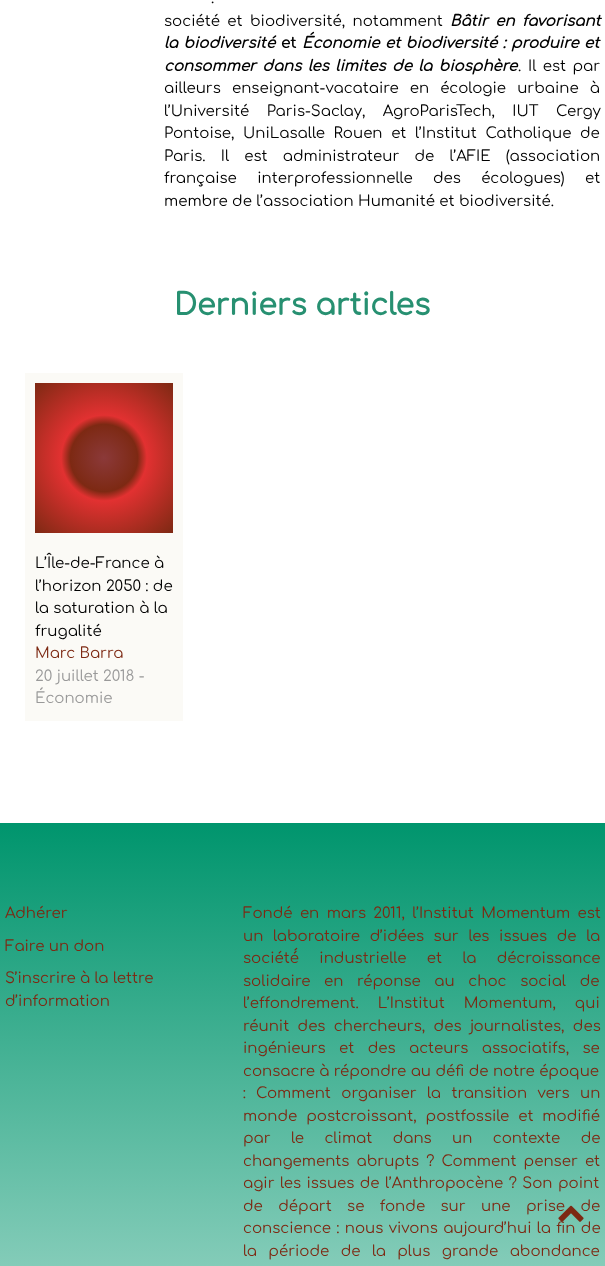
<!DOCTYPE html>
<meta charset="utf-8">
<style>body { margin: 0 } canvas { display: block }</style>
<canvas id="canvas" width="605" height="1266"></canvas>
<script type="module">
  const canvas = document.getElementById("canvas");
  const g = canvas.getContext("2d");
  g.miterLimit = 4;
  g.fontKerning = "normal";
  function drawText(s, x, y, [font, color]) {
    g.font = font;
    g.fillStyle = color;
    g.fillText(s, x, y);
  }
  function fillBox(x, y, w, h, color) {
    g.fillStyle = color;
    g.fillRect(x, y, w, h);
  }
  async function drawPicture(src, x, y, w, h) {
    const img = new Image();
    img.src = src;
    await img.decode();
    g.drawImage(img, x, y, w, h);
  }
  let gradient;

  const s1 = ["15px Comfortaa", "#000000"];
  const s2 = ["italic bold 15px Comfortaa", "#000000"];
  const s3 = ["bold 15px Comfortaa", "#000000"];
  const s4 = ["bold 30px Comfortaa", "#279071"];
  const s5 = ["15px Comfortaa", "#7D2913"];
  const s6 = ["15px Comfortaa", "#999999"];

  fillBox(0, 0, 605, 1266, "#FFFFFF");
  g.wordSpacing = "8px";
  drawText(".", 211, 3, s1);
  g.wordSpacing = "3px";
  drawText("société et biodiversité, notamment", 164, 26, s1);
  drawText("Bâtir en favorisant", 450, 26, s2);
  g.wordSpacing = "1px";
  drawText("la biodiversité", 164, 48, s2);
  g.wordSpacing = "0px";
  drawText("et", 281, 48, s3);
  g.wordSpacing = "1px";
  drawText("Économie et biodiversité : produire et", 302, 48, s2);
  g.wordSpacing = "2px";
  drawText("consommer dans les limites de la biosphère", 164, 71, s2);
  g.wordSpacing = "0px";
  drawText(".", 518, 71, s1);
  g.wordSpacing = "2px";
  drawText("Il est par", 528, 71, s1);
  g.wordSpacing = "6.75px";
  drawText("ailleurs enseignant-vacataire en écologie urbaine à", 164, 93, s1);
  g.wordSpacing = "13px";
  drawText("l’Université Paris-Saclay, AgroParisTech, IUT Cergy", 164, 116, s1);
  g.wordSpacing = "4.25px";
  drawText("Pontoise, UniLasalle Rouen et l’Institut Catholique de", 164, 138, s1);
  g.wordSpacing = "10.75px";
  drawText("Paris. Il est administrateur de l’AFIE (association", 164, 161, s1);
  g.wordSpacing = "16px";
  drawText("française interprofessionnelle des écologues) et", 164, 183, s1);
  g.wordSpacing = "0px";
  drawText("membre de l’association Humanité et biodiversité.", 164, 206, s1);
  drawText("Derniers articles", 174, 315, s4);
  fillBox(25, 373, 158, 348, "#FBFAF6");
  gradient = g.createRadialGradient(104, 458, 0, 104, 458, 102);
  gradient.addColorStop(0, "#8B3939");
  gradient.addColorStop(0.33, "#7D2913");
  gradient.addColorStop(0.42, "#E23131");
  gradient.addColorStop(1, "#7D2913");
  g.fillStyle = gradient;
  g.fillRect(35, 383, 138, 150);
  drawText("L’Île-de-France à", 35, 568, s1);
  drawText("l’horizon 2050 : de", 35, 591, s1);
  drawText("la saturation à la", 35, 613, s1);
  drawText("frugalité", 35, 636, s1);
  drawText("Marc Barra", 35, 658, s5);
  drawText("20 juillet 2018 -", 35, 681, s6);
  drawText("Économie", 35, 703, s6);
  gradient = g.createLinearGradient(302, 823, 303, 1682);
  gradient.addColorStop(0, "#00956D");
  gradient.addColorStop(1, "#FFFFFF");
  g.fillStyle = gradient;
  g.fillRect(0, 823, 605, 443);
  drawText("Adhérer", 5, 918, s5);
  drawText("Faire un don", 5, 951, s5);
  drawText("S’inscrire à la lettre", 5, 983, s5);
  drawText("d’information", 5, 1006, s5);
  g.wordSpacing = "3px";
  drawText("Fondé en mars 2011, l’Institut Momentum est", 243, 918, s5);
  g.wordSpacing = "5.25px";
  drawText("un laboratoire d’idées sur les issues de la", 243, 941, s5);
  g.wordSpacing = "16px";
  drawText("société́ industrielle et la décroissance", 243, 963, s5);
  g.wordSpacing = "9.25px";
  drawText("solidaire en réponse au choc social de", 243, 986, s5);
  g.wordSpacing = "14.5px";
  drawText("l’effondrement. L’Institut Momentum, qui", 243, 1008, s5);
  g.wordSpacing = "4px";
  drawText("réunit des chercheurs, des journalistes, des", 243, 1031, s5);
  g.wordSpacing = "9px";
  drawText("ingénieurs et des acteurs associatifs, se", 243, 1053, s5);
  g.wordSpacing = "0px";
  drawText("consacre à répondre au défi de notre époque", 243, 1076, s5);
  drawText(":", 243, 1098, s5);
  g.wordSpacing = "6px";
  drawText("Comment organiser la transition vers un", 256, 1098, s5);
  g.wordSpacing = "4.5px";
  drawText("monde postcroissant, postfossile et modifié", 243, 1121, s5);
  g.wordSpacing = "16px";
  drawText("par le climat dans un contexte de", 243, 1143, s5);
  g.wordSpacing = "2.75px";
  drawText("changements abrupts ? Comment penser et", 243, 1166, s5);
  g.wordSpacing = "1px";
  drawText("agir les issues de l’Anthropocène ? Son point", 243, 1188, s5);
  g.wordSpacing = "11px";
  drawText("de départ se fonde sur une prise de", 243, 1211, s5);
  g.wordSpacing = "1px";
  drawText("conscience : nous vivons aujourd’hui la fin de", 243, 1233, s5);
  g.wordSpacing = "7px";
  drawText("la période de la plus grande abondance", 243, 1256, s5);
  await drawPicture("pic1.png", 558, 1205, 26, 17);
</script>
